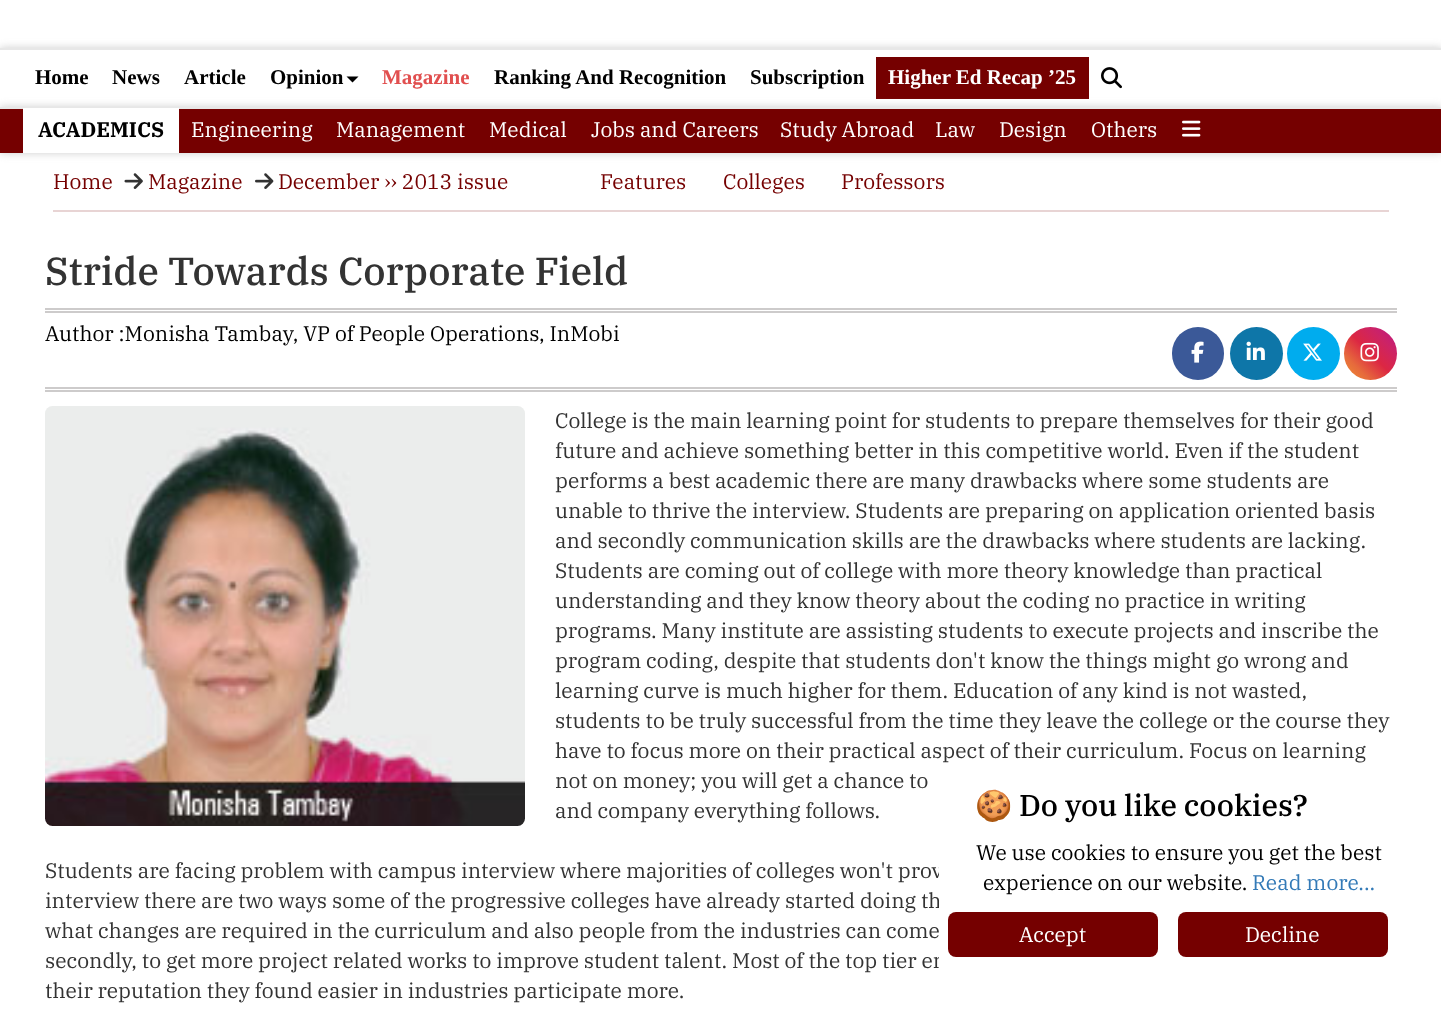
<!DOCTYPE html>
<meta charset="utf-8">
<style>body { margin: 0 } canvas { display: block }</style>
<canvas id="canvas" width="1441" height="1017"></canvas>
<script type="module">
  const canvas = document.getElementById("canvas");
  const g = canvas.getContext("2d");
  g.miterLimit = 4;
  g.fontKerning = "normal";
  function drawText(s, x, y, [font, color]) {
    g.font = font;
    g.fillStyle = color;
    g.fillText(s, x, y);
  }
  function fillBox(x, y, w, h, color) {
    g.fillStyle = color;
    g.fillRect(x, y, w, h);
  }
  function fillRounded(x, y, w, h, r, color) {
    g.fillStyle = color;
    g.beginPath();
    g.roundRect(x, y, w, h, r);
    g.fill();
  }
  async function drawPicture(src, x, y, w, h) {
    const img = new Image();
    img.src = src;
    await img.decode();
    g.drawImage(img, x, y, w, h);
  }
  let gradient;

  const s1 = ["bold 21px Liberation Serif", "#000000"];
  const s2 = ["bold 21px Liberation Serif", "#E14F4F"];
  const s3 = ["bold 21px Liberation Serif", "#FFFFFF"];
  const s4 = ["bold 21px IBM Plex Serif", "#000000"];
  const s5 = ["21px IBM Plex Serif", "#FFFFFF"];
  const s6 = ["21px IBM Plex Serif", "#750000"];
  const s7 = ["500 39px IBM Plex Serif", "#333333"];
  const s8 = ["21px IBM Plex Serif", "#000000"];
  const s9 = ["21px IBM Plex Serif", "#333333"];
  const s10 = ["30px Noto Color Emoji", "#000000"];
  const s11 = ["500 30px IBM Plex Serif", "#000000"];
  const s12 = ["21px IBM Plex Serif", "#337AB7"];

  fillBox(0, 0, 1441, 1017, "#FFFFFF");
  g.fillStyle = "#CCCCCC";
  g.filter = "blur(4px)";
  g.beginPath();
  g.rect(0, 48, 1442, 59);
  g.fill();
  g.filter = "none";
  fillBox(0, 50, 1441, 57, "#FFFFFF");
  fillBox(0, 48, 1441, 2, "#E7E7E7");
  drawText("Home", 35, 84, s1);
  drawText("News", 112, 84, s1);
  drawText("Article", 184, 84, s1);
  drawText("Opinion", 270, 84, s1);
  g.beginPath();
  g.moveTo(346.5, 76.5);
  g.lineTo(358.5, 76.5);
  g.lineTo(352.5, 82.5);
  g.closePath();
  g.fill();
  drawText("Magazine", 382, 84, s2);
  drawText("Ranking And Recognition", 494, 84, s1);
  drawText("Subscription", 750, 84, s1);
  fillBox(876, 57, 213, 42, "#750000");
  drawText("Higher Ed Recap ’25", 888, 84, s3);
  await drawPicture("pic1.png", 1101, 67, 21, 22);
  g.fillStyle = "#CCCCCC";
  g.filter = "blur(4px)";
  g.beginPath();
  g.rect(0, 107, 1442, 46);
  g.fill();
  g.filter = "none";
  fillBox(0, 109, 1441, 44, "#750000");
  fillBox(0, 107, 1441, 2, "#E7E7E7");
  fillBox(23, 108, 156, 45, "#FFFFFF");
  drawText("ACADEMICS", 38, 137, s4);
  drawText("Engineering", 191, 137, s5);
  drawText("Management", 336, 137, s5);
  drawText("Medical", 489, 137, s5);
  drawText("Jobs and Careers", 591, 137, s5);
  drawText("Study Abroad", 780, 137, s5);
  drawText("Law", 935, 137, s5);
  drawText("Design", 999, 137, s5);
  drawText("Others", 1091, 137, s5);
  await drawPicture("pic2.png", 1182, 120, 19, 17);
  fillBox(53, 210, 1336, 2, "#E8D4D4");
  drawText("Home", 53, 189, s6);
  await drawPicture("pic3.png", 124, 173, 19, 16);
  drawText("Magazine", 148, 189, s6);
  await drawPicture("pic4.png", 255, 173, 19, 16);
  drawText("December ›› 2013 issue", 278, 189, s6);
  drawText("Features", 600, 189, s6);
  drawText("Colleges", 723, 189, s6);
  drawText("Professors", 841, 189, s6);
  drawText("Stride Towards Corporate Field", 45, 285, s7);
  fillBox(45, 308, 1352, 2, "#CDCBCB");
  fillBox(45, 311, 1352, 2, "#CDCBCB");
  fillBox(45, 387, 1352, 2, "#CDCBCB");
  fillBox(45, 390, 1352, 2, "#CDCBCB");
  drawText("Author :Monisha Tambay, VP of People Operations", 45, 341, s8);
  drawText(", InMobi", 539, 341, s8);
  fillRounded(1172, 327, 52, 53, 26, "#3B5998");
  await drawPicture("pic5.png", 1191, 341, 13, 22);
  g.fillStyle = "#0E76A8";
  g.beginPath();
  g.arc(1256.5, 353.5, 26.5, 0, Math.PI * 2);
  g.fill();
  await drawPicture("pic6.png", 1246, 341, 19, 19);
  g.fillStyle = "#00ACEE";
  g.beginPath();
  g.arc(1313.5, 353.5, 26.5, 0, Math.PI * 2);
  g.fill();
  await drawPicture("pic7.png", 1303, 343, 19, 18);
  gradient = g.createLinearGradient(1344, 380, 1397, 327);
  gradient.addColorStop(0, "#F09433");
  gradient.addColorStop(0.25, "#E6683C");
  gradient.addColorStop(0.5, "#DC2743");
  gradient.addColorStop(0.75, "#CC2366");
  gradient.addColorStop(1, "#BC1888");
  g.fillStyle = gradient;
  g.beginPath();
  g.arc(1370.5, 353.5, 26.5, 0, Math.PI * 2);
  g.fill();
  await drawPicture("pic8.png", 1360, 342, 19, 20);
  await drawPicture("pic9.png", 45, 406, 480, 420);
  drawText("College is the main learning point for students to prepare themselves for their good", 555, 428, s9);
  drawText("future and achieve something better in this competitive world. Even if the student", 555, 458, s9);
  drawText("performs a best academic there are many drawbacks where some students are", 555, 488, s9);
  drawText("unable to thrive the interview. Students are preparing on application oriented basis", 555, 518, s9);
  drawText("and secondly communication skills are the drawbacks where students are lacking.", 555, 548, s9);
  drawText("Students are coming out of college with more theory knowledge than practical", 555, 578, s9);
  drawText("understanding and they know theory about the coding no practice in writing", 555, 608, s9);
  drawText("programs. Many institute are assisting students to execute projects and inscribe the", 555, 638, s9);
  drawText("program coding, despite that students don't know the things might go wrong and", 555, 668, s9);
  drawText("learning curve is much higher for them. Education of any kind is not wasted,", 555, 698, s9);
  drawText("students to be truly successful from the time they leave the college or the course they", 555, 728, s9);
  drawText("have to focus more on their practical aspect of their curriculum. Focus on learning", 555, 758, s9);
  drawText("not on money; you will get a chance to", 555, 788, s9);
  drawText("and company everything follows.", 555, 818, s9);
  drawText("Students are facing problem with campus interview where majorities of colleges won't prov", 45, 878, s9);
  drawText("interview there are two ways some of the progressive colleges have already started doing th", 45, 908, s9);
  drawText("what changes are required in the curriculum and also people from the industries can come", 45, 938, s9);
  drawText("secondly, to get more project related works to improve student talent. Most of the top tier en", 45, 968, s9);
  drawText("their reputation they found easier in industries participate more.", 45, 998, s9);
  fillBox(939, 867, 7, 101, "#FFFFFF");
  drawText("🍪", 975, 816, s10);
  drawText("Do you like cookies?", 1019, 816, s11);
  drawText("We use cookies to ensure you get the best", 976, 860, s8);
  drawText("experience on our website.", 983, 890, s8);
  drawText("Read more...", 1252, 890, s12);
  fillRounded(948, 912, 210, 45, 8, "#750000");
  drawText("Accept", 1019, 942, s5);
  fillRounded(1178, 912, 210, 45, 8, "#750000");
  drawText("Decline", 1245, 942, s5);
</script>
